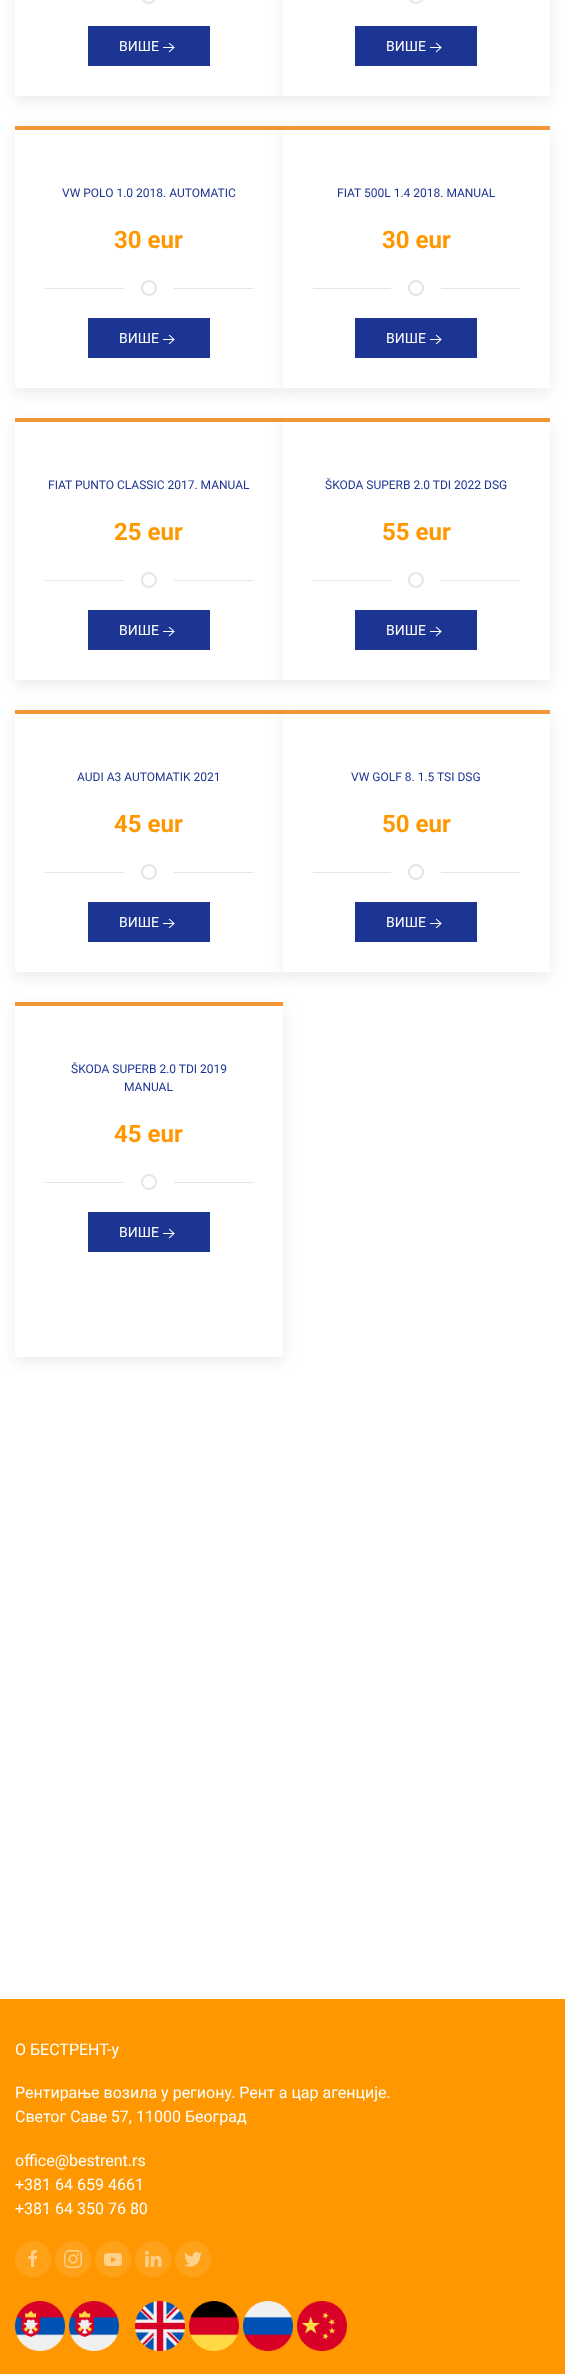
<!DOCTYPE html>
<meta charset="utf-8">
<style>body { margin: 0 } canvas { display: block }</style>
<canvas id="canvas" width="565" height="2374"></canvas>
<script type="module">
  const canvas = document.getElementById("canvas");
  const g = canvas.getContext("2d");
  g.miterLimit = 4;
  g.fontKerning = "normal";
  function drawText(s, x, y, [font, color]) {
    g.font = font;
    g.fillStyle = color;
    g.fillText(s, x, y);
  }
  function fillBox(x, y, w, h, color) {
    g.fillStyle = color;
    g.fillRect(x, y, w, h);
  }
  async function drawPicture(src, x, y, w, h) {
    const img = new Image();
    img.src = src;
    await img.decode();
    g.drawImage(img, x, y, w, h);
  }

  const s1 = ["14px Roboto", "#FFFFFF"];
  const s2 = ["12px Roboto", "#1C3592"];
  const s3 = ["bold 24px Roboto", "#FF9800"];
  const s4 = ["16px Roboto", "#FFFFFF"];

  fillBox(0, 0, 565, 2374, "#FFFFFF");
  g.save();
  g.beginPath();
  g.moveTo(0, 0);
  g.lineTo(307, 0);
  g.lineTo(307, 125);
  g.lineTo(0, 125);
  g.closePath();
  g.moveTo(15, -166);
  g.lineTo(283, -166);
  g.lineTo(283, 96);
  g.lineTo(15, 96);
  g.closePath();
  g.clip("evenodd");
  g.fillStyle = "rgba(0, 0, 0, 0.08)";
  g.filter = "blur(7.5px)";
  g.beginPath();
  g.rect(15, -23, 268, 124);
  g.fill();
  g.filter = "none";
  g.restore();
  g.beginPath();
  g.arc(149, -4, 7, 0, Math.PI * 2);
  g.strokeStyle = "#E5E5E5";
  g.lineWidth = 2;
  g.stroke();
  fillBox(88, 26, 122, 40, "#1D3592");
  drawText("ВИШЕ", 119, 51, s1);
  await drawPicture("pic1.png", 163, 42, 12, 11);
  g.fillStyle = "rgba(0, 0, 0, 0.08)";
  g.filter = "blur(7.5px)";
  g.beginPath();
  g.rect(283, -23, 267, 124);
  g.fill();
  g.filter = "none";
  fillBox(283, 0, 267, 96, "#FFFFFF");
  g.beginPath();
  g.arc(416, -4, 7, 0, Math.PI * 2);
  g.stroke();
  fillBox(355, 26, 122, 40, "#1D3592");
  drawText("ВИШЕ", 386, 51, s1);
  await drawPicture("pic1.png", 430, 42, 12, 11);
  g.save();
  g.beginPath();
  g.moveTo(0, 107);
  g.lineTo(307, 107);
  g.lineTo(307, 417);
  g.lineTo(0, 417);
  g.closePath();
  g.moveTo(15, 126);
  g.lineTo(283, 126);
  g.lineTo(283, 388);
  g.lineTo(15, 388);
  g.closePath();
  g.clip("evenodd");
  g.fillStyle = "rgba(0, 0, 0, 0.08)";
  g.filter = "blur(7.5px)";
  g.beginPath();
  g.rect(15, 131, 268, 262);
  g.fill();
  g.filter = "none";
  g.restore();
  fillBox(15, 126, 268, 4, "#F19733");
  drawText("VW POLO 1.0 2018. AUTOMATIC", 62, 197, s2);
  drawText("30 eur", 114, 248, s3);
  g.beginPath();
  g.arc(149, 288, 7, 0, Math.PI * 2);
  g.stroke();
  fillBox(45, 288, 79, 1, "#E5E5E5");
  fillBox(174, 288, 79, 1, "#E5E5E5");
  fillBox(88, 318, 122, 40, "#1D3592");
  drawText("ВИШЕ", 119, 343, s1);
  await drawPicture("pic1.png", 163, 334, 12, 11);
  g.fillStyle = "rgba(0, 0, 0, 0.08)";
  g.filter = "blur(7.5px)";
  g.beginPath();
  g.rect(283, 131, 267, 262);
  g.fill();
  g.filter = "none";
  fillBox(283, 130, 267, 258, "#FFFFFF");
  fillBox(283, 126, 267, 4, "#F19733");
  drawText("FIAT 500L 1.4 2018. MANUAL", 337, 197, s2);
  drawText("30 eur", 382, 248, s3);
  g.beginPath();
  g.arc(416, 288, 7, 0, Math.PI * 2);
  g.stroke();
  fillBox(313, 288, 78, 1, "#E5E5E5");
  fillBox(441, 288, 79, 1, "#E5E5E5");
  fillBox(355, 318, 122, 40, "#1D3592");
  drawText("ВИШЕ", 386, 343, s1);
  await drawPicture("pic1.png", 430, 334, 12, 11);
  g.save();
  g.beginPath();
  g.moveTo(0, 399);
  g.lineTo(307, 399);
  g.lineTo(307, 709);
  g.lineTo(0, 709);
  g.closePath();
  g.moveTo(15, 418);
  g.lineTo(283, 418);
  g.lineTo(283, 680);
  g.lineTo(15, 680);
  g.closePath();
  g.clip("evenodd");
  g.fillStyle = "rgba(0, 0, 0, 0.08)";
  g.filter = "blur(7.5px)";
  g.beginPath();
  g.rect(15, 423, 268, 262);
  g.fill();
  g.filter = "none";
  g.restore();
  fillBox(15, 418, 268, 4, "#F19733");
  drawText("FIAT PUNTO CLASSIC 2017. MANUAL", 48, 489, s2);
  drawText("25 eur", 114, 540, s3);
  g.beginPath();
  g.arc(149, 580, 7, 0, Math.PI * 2);
  g.stroke();
  fillBox(45, 580, 79, 1, "#E5E5E5");
  fillBox(174, 580, 79, 1, "#E5E5E5");
  fillBox(88, 610, 122, 40, "#1D3592");
  drawText("ВИШЕ", 119, 635, s1);
  await drawPicture("pic1.png", 163, 626, 12, 11);
  g.fillStyle = "rgba(0, 0, 0, 0.08)";
  g.filter = "blur(7.5px)";
  g.beginPath();
  g.rect(283, 423, 267, 262);
  g.fill();
  g.filter = "none";
  fillBox(283, 422, 267, 258, "#FFFFFF");
  fillBox(283, 418, 267, 4, "#F19733");
  drawText("ŠKODA SUPERB 2.0 TDI 2022 DSG", 325, 489, s2);
  drawText("55 eur", 382, 540, s3);
  g.beginPath();
  g.arc(416, 580, 7, 0, Math.PI * 2);
  g.stroke();
  fillBox(313, 580, 78, 1, "#E5E5E5");
  fillBox(441, 580, 79, 1, "#E5E5E5");
  fillBox(355, 610, 122, 40, "#1D3592");
  drawText("ВИШЕ", 386, 635, s1);
  await drawPicture("pic1.png", 430, 626, 12, 11);
  g.save();
  g.beginPath();
  g.moveTo(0, 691);
  g.lineTo(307, 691);
  g.lineTo(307, 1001);
  g.lineTo(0, 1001);
  g.closePath();
  g.moveTo(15, 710);
  g.lineTo(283, 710);
  g.lineTo(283, 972);
  g.lineTo(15, 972);
  g.closePath();
  g.clip("evenodd");
  g.fillStyle = "rgba(0, 0, 0, 0.08)";
  g.filter = "blur(7.5px)";
  g.beginPath();
  g.rect(15, 715, 268, 262);
  g.fill();
  g.filter = "none";
  g.restore();
  fillBox(15, 710, 268, 4, "#F19733");
  drawText("AUDI A3 AUTOMATIK 2021", 77, 781, s2);
  drawText("45 eur", 114, 832, s3);
  g.beginPath();
  g.arc(149, 872, 7, 0, Math.PI * 2);
  g.stroke();
  fillBox(45, 872, 79, 1, "#E5E5E5");
  fillBox(174, 872, 79, 1, "#E5E5E5");
  fillBox(88, 902, 122, 40, "#1D3592");
  drawText("ВИШЕ", 119, 927, s1);
  await drawPicture("pic1.png", 163, 918, 12, 11);
  g.fillStyle = "rgba(0, 0, 0, 0.08)";
  g.filter = "blur(7.5px)";
  g.beginPath();
  g.rect(283, 715, 267, 262);
  g.fill();
  g.filter = "none";
  fillBox(283, 714, 267, 258, "#FFFFFF");
  fillBox(283, 710, 267, 4, "#F19733");
  drawText("VW GOLF 8. 1.5 TSI DSG", 351, 781, s2);
  drawText("50 eur", 382, 832, s3);
  g.beginPath();
  g.arc(416, 872, 7, 0, Math.PI * 2);
  g.stroke();
  fillBox(313, 872, 78, 1, "#E5E5E5");
  fillBox(441, 872, 79, 1, "#E5E5E5");
  fillBox(355, 902, 122, 40, "#1D3592");
  drawText("ВИШЕ", 386, 927, s1);
  await drawPicture("pic1.png", 430, 918, 12, 11);
  g.save();
  g.beginPath();
  g.moveTo(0, 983);
  g.lineTo(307, 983);
  g.lineTo(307, 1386);
  g.lineTo(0, 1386);
  g.closePath();
  g.moveTo(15, 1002);
  g.lineTo(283, 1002);
  g.lineTo(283, 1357);
  g.lineTo(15, 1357);
  g.closePath();
  g.clip("evenodd");
  g.fillStyle = "rgba(0, 0, 0, 0.08)";
  g.filter = "blur(7.5px)";
  g.beginPath();
  g.rect(15, 1007, 268, 355);
  g.fill();
  g.filter = "none";
  g.restore();
  fillBox(15, 1002, 268, 4, "#F19733");
  drawText("ŠKODA SUPERB 2.0 TDI 2019", 71, 1073, s2);
  drawText("MANUAL", 124, 1091, s2);
  drawText("45 eur", 114, 1142, s3);
  g.beginPath();
  g.arc(149, 1182, 7, 0, Math.PI * 2);
  g.stroke();
  fillBox(45, 1182, 79, 1, "#E5E5E5");
  fillBox(174, 1182, 79, 1, "#E5E5E5");
  fillBox(88, 1212, 122, 40, "#1D3592");
  drawText("ВИШЕ", 119, 1237, s1);
  await drawPicture("pic1.png", 163, 1228, 12, 11);
  fillBox(0, 1999, 565, 375, "#FF9800");
  drawText("О БЕСТРЕНТ-у", 15, 2055, s4);
  drawText("Рентирање возила у региону. Рент а цар агенције.", 15, 2098, s4);
  drawText("Светог Саве 57, 11000 Београд", 15, 2122, s4);
  drawText("office@bestrent.rs", 15, 2166, s4);
  drawText("+381 64 659 4661", 15, 2190, s4);
  drawText("+381 64 350 76 80", 15, 2214, s4);
  g.fillStyle = "#FFA21A";
  g.beginPath();
  g.arc(33, 2259, 18, 0, Math.PI * 2);
  g.fill();
  await drawPicture("pic2.png", 28, 2250, 9, 17);
  g.beginPath();
  g.arc(73, 2259, 18, 0, Math.PI * 2);
  g.fill();
  await drawPicture("pic3.png", 64, 2250, 18, 18);
  g.beginPath();
  g.arc(113, 2259, 18, 0, Math.PI * 2);
  g.fill();
  await drawPicture("pic4.png", 104, 2253, 18, 14);
  g.beginPath();
  g.arc(153, 2259, 18, 0, Math.PI * 2);
  g.fill();
  await drawPicture("pic5.png", 145, 2251, 17, 16);
  g.beginPath();
  g.arc(193, 2259, 18, 0, Math.PI * 2);
  g.fill();
  await drawPicture("pic6.png", 184, 2252, 18, 15);
  await drawPicture("pic7.png", 15, 2301, 50, 50);
  await drawPicture("pic8.png", 69, 2301, 50, 50);
  await drawPicture("pic9.png", 135, 2301, 50, 50);
  await drawPicture("pic10.png", 189, 2301, 50, 50);
  await drawPicture("pic11.png", 243, 2301, 50, 50);
  await drawPicture("pic12.png", 297, 2301, 50, 50);
</script>
